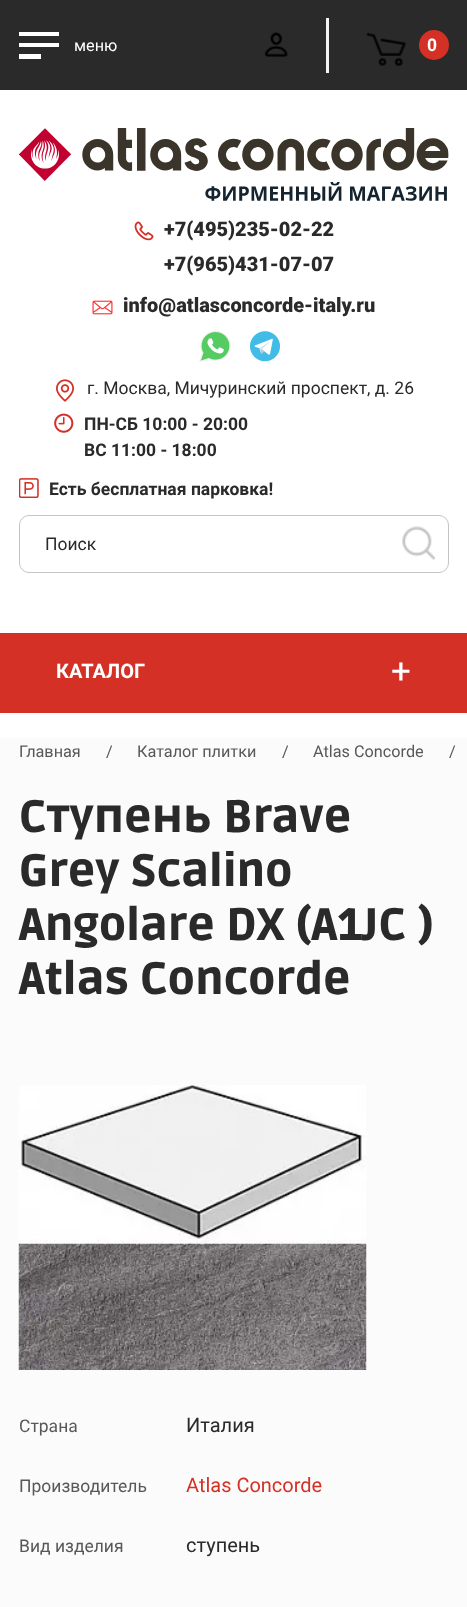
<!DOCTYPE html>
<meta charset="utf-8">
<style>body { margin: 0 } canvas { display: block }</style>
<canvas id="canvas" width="467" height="1607"></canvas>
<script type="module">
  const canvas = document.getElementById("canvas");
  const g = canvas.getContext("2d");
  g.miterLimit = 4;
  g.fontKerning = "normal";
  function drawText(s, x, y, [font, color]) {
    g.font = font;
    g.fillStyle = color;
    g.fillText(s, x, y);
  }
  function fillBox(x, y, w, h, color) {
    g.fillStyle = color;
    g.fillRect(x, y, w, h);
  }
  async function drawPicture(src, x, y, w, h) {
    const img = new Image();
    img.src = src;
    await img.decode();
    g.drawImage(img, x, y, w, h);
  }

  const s1 = ["16.25px Roboto", "#FFFFFF"];
  const s2 = ["bold 17.5px Roboto", "#FFFFFF"];
  const s3 = ["900 20px Roboto", "#2A2A2A"];
  const s4 = ["17.5px Roboto", "#2A2A2A"];
  const s5 = ["bold 17.5px Roboto", "#2A2A2A"];
  const s6 = ["bold 20px Roboto", "#FFFFFF"];
  const s7 = ["35px Roboto", "#FFFFFF"];
  const s8 = ["16.25px Roboto", "#585858"];
  const s9 = ["900 45px Ruda", "#2A2A2A"];
  const s10 = ["17.5px Roboto", "#585858"];
  const s11 = ["20px Roboto", "#2A2A2A"];
  const s12 = ["20px Roboto", "#D43026"];

  fillBox(0, 0, 467, 1607, "#FFFFFF");
  fillBox(0, 0, 467, 90, "#2A2A2A");
  fillBox(19, 54, 22, 5, "#FFFFFF");
  fillBox(19, 43, 40, 4, "#FFFFFF");
  fillBox(19, 32, 40, 4, "#FFFFFF");
  drawText("меню", 74, 51, s1);
  fillBox(326, 18, 3, 55, "#F4F4F4");
  await drawPicture("pic1.png", 264, 32, 24, 25);
  await drawPicture("pic2.png", 366, 32, 40, 34);
  g.fillStyle = "#D43026";
  g.beginPath();
  g.arc(434, 45, 15, 0, Math.PI * 2);
  g.fill();
  drawText("0", 427, 51, s2);
  await drawPicture("pic3.png", 19, 128, 430, 73);
  await drawPicture("pic4.png", 134, 221, 20, 20);
  drawText("+7(495)235-02-22", 164, 236, s3);
  drawText("+7(965)431-07-07", 164, 271, s3);
  await drawPicture("pic5.png", 92, 300, 21, 15);
  drawText("info@atlasconcorde-italy.ru", 123, 312, s3);
  await drawPicture("pic6.png", 199, 331, 32, 31);
  await drawPicture("pic7.png", 249, 330, 32, 32);
  await drawPicture("pic8.png", 56, 379, 18, 23);
  drawText("г. Москва, Мичуринский проспект, д. 26", 87, 394, s4);
  await drawPicture("pic9.png", 54, 413, 20, 20);
  drawText("ПН-СБ 10:00 - 20:00", 84, 430, s5);
  drawText("ВС 11:00 - 18:00", 84, 456, s5);
  await drawPicture("pic10.png", 19, 478, 20, 20);
  drawText("Есть бесплатная парковка!", 49, 495, s5);
  g.beginPath();
  g.roundRect(19.5, 515.5, 429, 57, 9.5);
  g.strokeStyle = "#C4C4C4";
  g.stroke();
  drawText("Поиск", 45, 550, s4);
  await drawPicture("pic11.png", 402, 526, 33, 34);
  fillBox(0, 633, 467, 80, "#D43026");
  drawText("КАТАЛОГ", 56, 678, s6);
  drawText("+", 391, 683, s7);
  fillBox(0, 738, 467, 869, "#FBFBFB");
  drawText("Главная", 19, 757, s8);
  drawText("/", 106, 757, s8);
  drawText("Каталог плитки", 137, 757, s8);
  drawText("/", 282, 757, s8);
  drawText("Atlas Concorde", 313, 757, s8);
  drawText("/", 449, 757, s8);
  drawText("Ступень Brave", 19, 832, s9);
  drawText("Grey Scalino", 19, 886, s9);
  drawText("Angolare DX (A1JC )", 19, 940, s9);
  drawText("Atlas Concorde", 19, 994, s9);
  await drawPicture("pic12.png", 18, 1085, 349, 285);
  drawText("Страна", 19, 1432, s10);
  drawText("Италия", 186, 1432, s11);
  drawText("Производитель", 19, 1492, s10);
  drawText("Atlas Concorde", 186, 1492, s12);
  drawText("Вид изделия", 19, 1552, s10);
  drawText("ступень", 186, 1552, s11);
</script>
